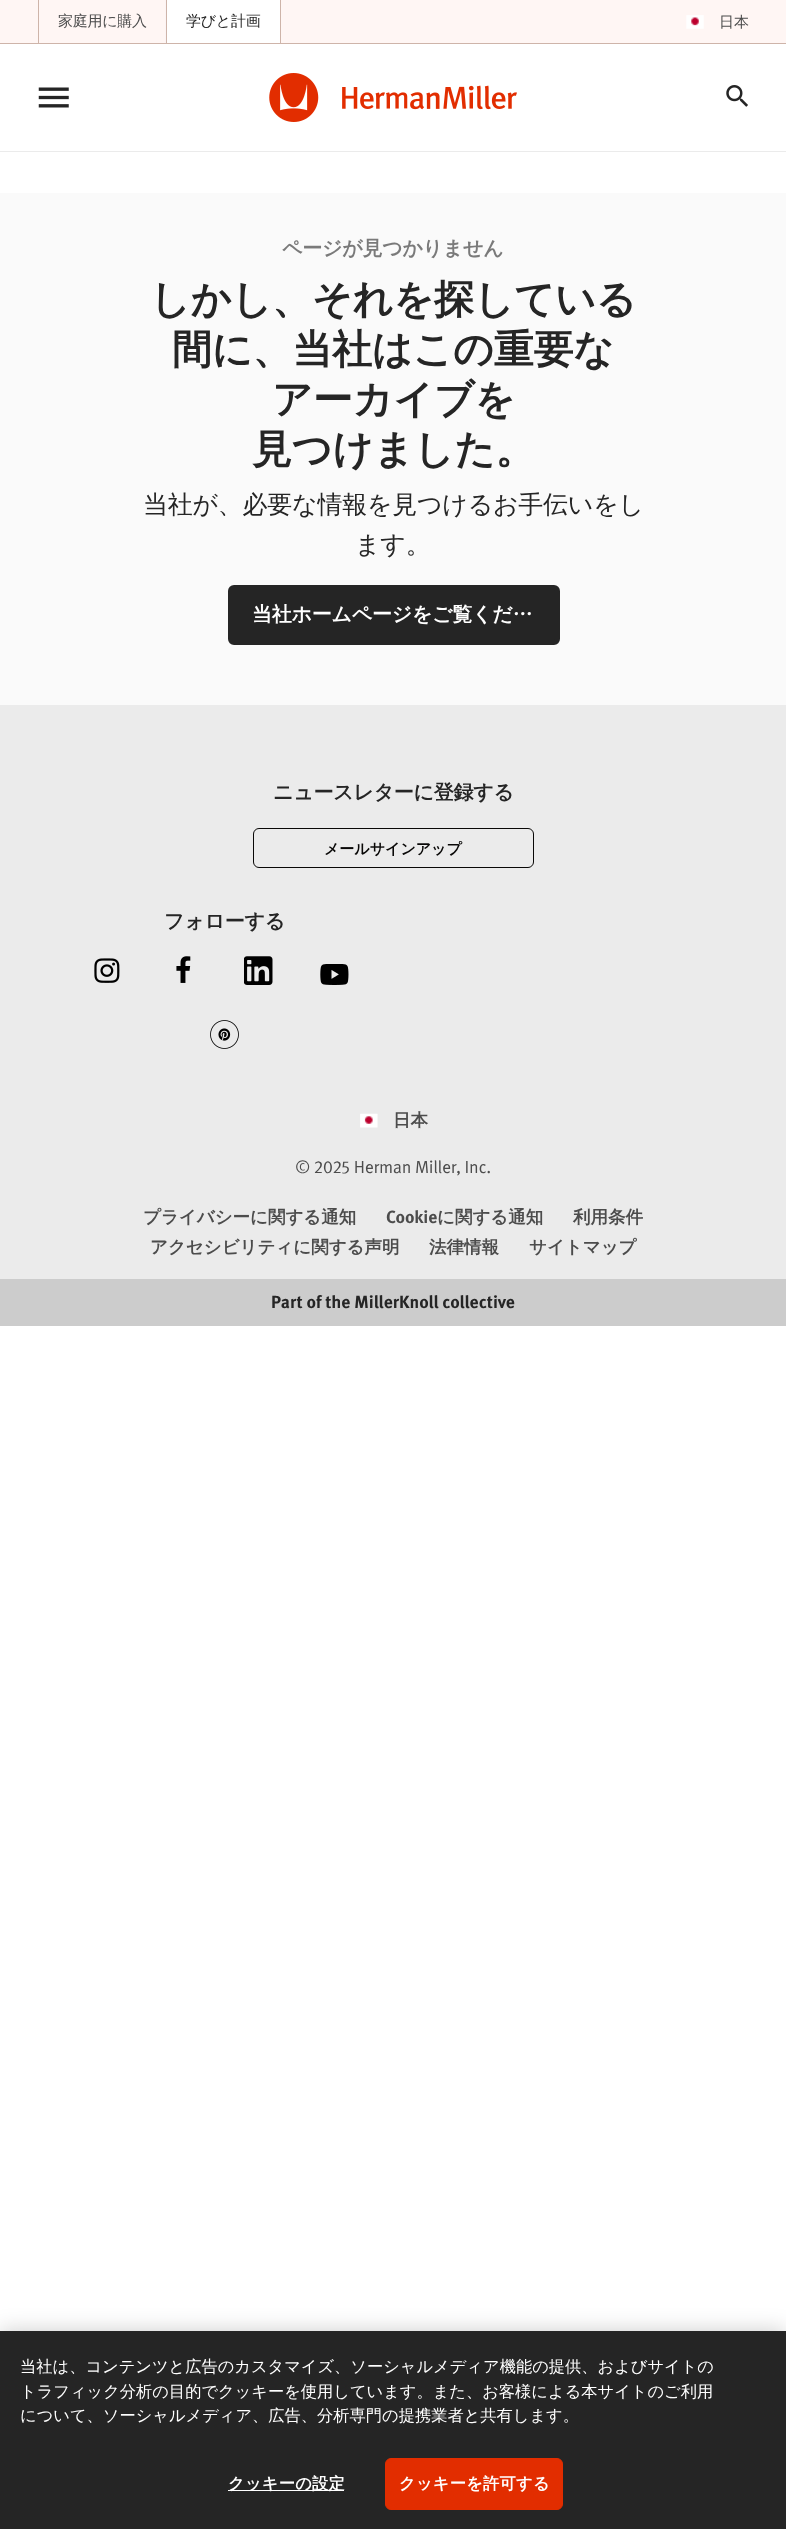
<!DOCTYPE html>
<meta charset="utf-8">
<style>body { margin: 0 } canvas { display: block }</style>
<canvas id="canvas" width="786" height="2529"></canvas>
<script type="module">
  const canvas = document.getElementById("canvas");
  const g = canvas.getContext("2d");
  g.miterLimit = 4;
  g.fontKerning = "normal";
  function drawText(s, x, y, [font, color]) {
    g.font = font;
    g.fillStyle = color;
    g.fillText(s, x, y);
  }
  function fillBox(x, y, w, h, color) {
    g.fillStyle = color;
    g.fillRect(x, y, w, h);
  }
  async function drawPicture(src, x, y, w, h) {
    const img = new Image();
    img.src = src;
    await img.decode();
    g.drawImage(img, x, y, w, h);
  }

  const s1 = ["500 15px WenQuanYi Zen Hei", "#4C4C4C"];
  const s2 = ["500 15px WenQuanYi Zen Hei", "#252525"];
  const s3 = ["bold 20px WenQuanYi Zen Hei", "#7A7A7A"];
  const s4 = ["bold 40px WenQuanYi Zen Hei", "#252525"];
  const s5 = ["500 25px WenQuanYi Zen Hei", "#252525"];
  const s6 = ["bold 20px WenQuanYi Zen Hei", "#FFFFFF"];
  const s7 = ["bold 20px WenQuanYi Zen Hei", "#252525"];
  const s8 = ["bold 15px WenQuanYi Zen Hei", "#090807"];
  const s9 = ["bold 17.5px WenQuanYi Zen Hei", "#4C4C4C"];
  const s10 = ["17.5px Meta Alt", "#4C4C4C"];
  const s11 = ["bold 17.5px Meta", "#4C4C4C"];
  const s12 = ["bold 17.5px Meta", "#252525"];
  const s13 = ["500 16.25px WenQuanYi Zen Hei", "#FFFFFF"];
  const s14 = ["bold 16.25px WenQuanYi Zen Hei", "#FFFFFF"];

  fillBox(0, 0, 786, 2529, "#FFFFFF");
  fillBox(0, 0, 786, 43, "#FFF6F4");
  fillBox(0, 43, 786, 1, "#CEB4A9");
  fillBox(165, 0, 1, 43, "#FBF4F4");
  fillBox(38, 0, 1, 43, "#CEB4A9");
  g.letterSpacing = "-0.25px";
  drawText("家庭用に購入", 58, 26, s1);
  fillBox(167, 0, 113, 43, "#FFFFFF");
  fillBox(280, 0, 1, 43, "#CEB4A9");
  fillBox(166, 0, 1, 43, "#CEB4A9");
  drawText("学びと計画", 186, 26, s2);
  await drawPicture("pic1.png", 686, 15, 18, 14);
  g.letterSpacing = "0px";
  drawText("日本", 719, 27, s1);
  fillBox(0, 151, 786, 1, "#EBEBEB");
  await drawPicture("pic2.png", 38, 87, 31, 21);
  await drawPicture("pic3.png", 269, 73, 248, 49);
  await drawPicture("pic4.png", 726, 85, 22, 22);
  fillBox(0, 193, 786, 512, "#FAFAFA");
  g.letterSpacing = "-0.25px";
  drawText("ページが見つかりません", 282, 255, s3);
  drawText("しかし、それを探している", 150, 313, s4);
  drawText("間に、当社はこの重要な", 172, 363, s4);
  drawText("アーカイブを", 272, 413, s4);
  drawText("見つけました。", 252, 463, s4);
  drawText("当社が、必要な情報を見つけるお手伝いをし", 143, 513, s5);
  drawText("ます。", 355, 553, s5);
  g.beginPath();
  g.roundRect(230.5, 587.5, 327, 55, 3.5);
  g.fill();
  g.strokeStyle = "#252525";
  g.lineWidth = 5;
  g.stroke();
  drawText("当社ホームページをご覧くだ…", 252, 621, s6);
  fillBox(0, 705, 786, 574, "#EBEBEB");
  drawText("ニュースレターに登録する", 273, 799, s7);
  g.beginPath();
  g.roundRect(253.5, 828.5, 280, 39, 5.5);
  g.strokeStyle = "#090807";
  g.lineWidth = 1;
  g.stroke();
  g.letterSpacing = "0px";
  drawText("メールサインアップ", 324, 854, s8);
  g.letterSpacing = "-0.25px";
  drawText("フォローする", 164, 928, s7);
  await drawPicture("pic5.png", 94, 958, 26, 25);
  await drawPicture("pic6.png", 176, 956, 15, 27);
  await drawPicture("pic7.png", 244, 956, 29, 29);
  await drawPicture("pic8.png", 320, 964, 29, 21);
  await drawPicture("pic9.png", 210, 1020, 29, 29);
  await drawPicture("pic10.png", 360, 1113, 18, 15);
  g.letterSpacing = "0px";
  drawText("日本", 393, 1126, s9);
  g.letterSpacing = "-0.25px";
  drawText("© 2025 Herman Miller, Inc.", 295, 1173, s10);
  g.letterSpacing = "0px";
  drawText("プライバシーに関する通知", 143, 1223, s9);
  drawText("Cookie", 386, 1223, s11);
  drawText("に関する通知", 437, 1223, s9);
  drawText("利用条件", 573, 1223, s9);
  drawText("アクセシビリティに関する声明", 150, 1253, s9);
  drawText("法律情報", 429, 1253, s9);
  drawText("サイトマップ", 529, 1253, s9);
  fillBox(0, 1279, 786, 47, "#CCCCCC");
  drawText("Part of the MillerKnoll collective", 271, 1308, s12);
  g.fillStyle = "rgba(0, 0, 0, 0.2)";
  g.filter = "blur(11px)";
  g.beginPath();
  g.rect(0, 2331, 786, 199);
  g.fill();
  g.filter = "none";
  fillBox(0, 2331, 786, 198, "#252525");
  drawText("当社は、コンテンツと広告のカスタマイズ、ソーシャルメディア機能の提供、およびサイトの", 20, 2372, s13);
  drawText("トラフィック分析の目的でクッキーを使用しています。また、お客様による本サイトのご利用", 20, 2397, s13);
  drawText("について、ソーシャルメディア、広告、分析専門の提携業者と共有します。", 20, 2421, s13);
  fillBox(228, 2490, 116, 1, "#FFFFFF");
  g.letterSpacing = "0.25px";
  drawText("クッキーの設定", 228, 2489, s14);
  g.fillStyle = "#E22D00";
  g.beginPath();
  g.roundRect(385.5, 2458.5, 177, 51, 5.5);
  g.fill();
  g.strokeStyle = "#E22D00";
  g.stroke();
  drawText("クッキーを許可する", 399, 2489, s14);
</script>
